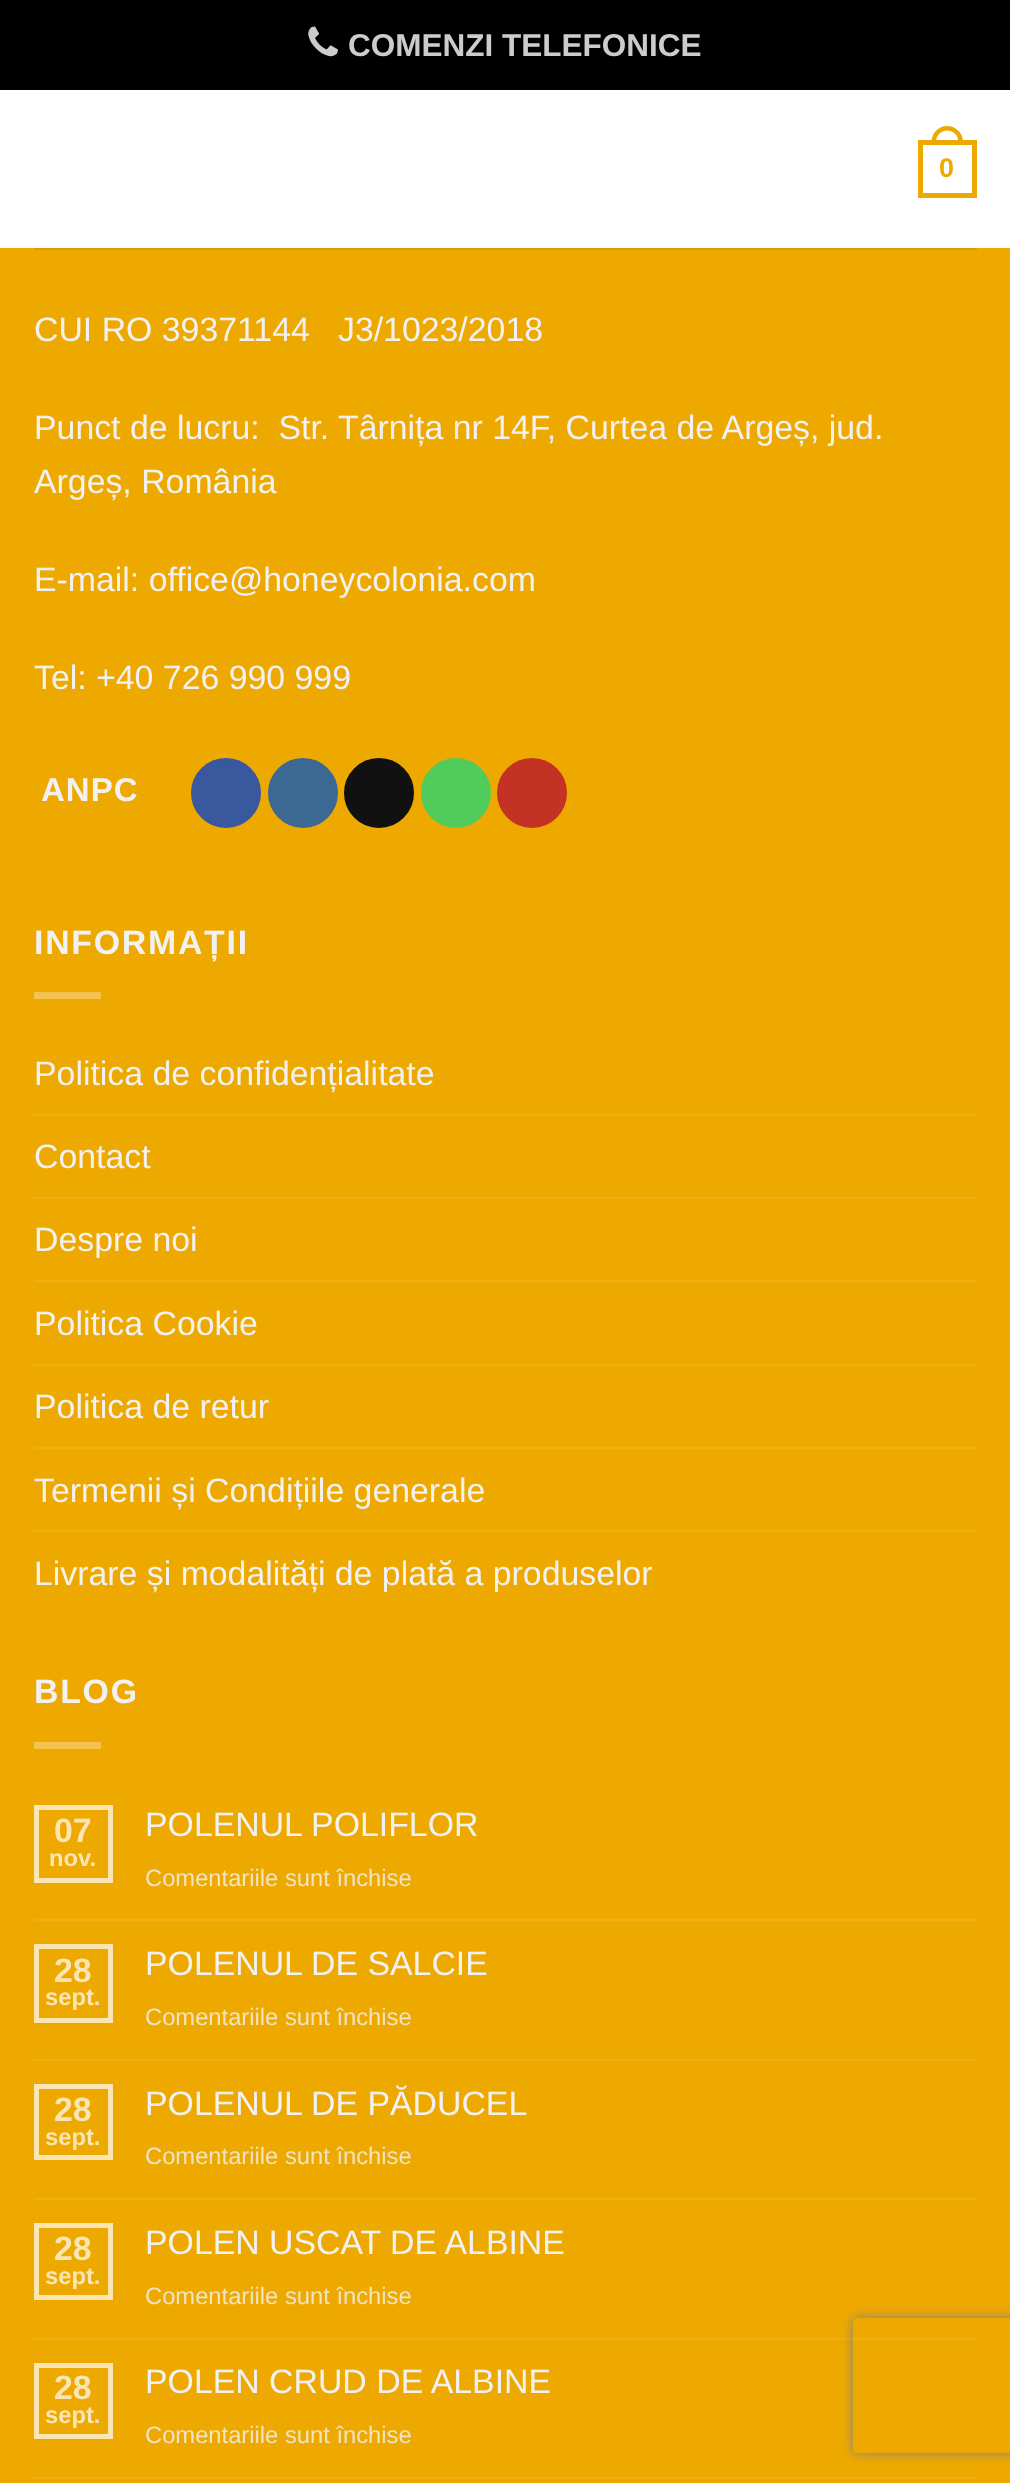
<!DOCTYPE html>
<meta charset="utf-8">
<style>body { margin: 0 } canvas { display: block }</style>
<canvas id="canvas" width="1010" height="2483"></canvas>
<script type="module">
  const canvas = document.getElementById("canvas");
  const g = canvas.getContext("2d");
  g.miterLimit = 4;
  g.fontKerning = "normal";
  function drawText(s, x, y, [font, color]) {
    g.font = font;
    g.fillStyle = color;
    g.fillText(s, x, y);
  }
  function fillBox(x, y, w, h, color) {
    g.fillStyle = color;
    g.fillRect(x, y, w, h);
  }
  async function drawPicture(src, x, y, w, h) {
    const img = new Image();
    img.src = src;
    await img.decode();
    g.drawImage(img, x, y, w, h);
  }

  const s1 = ["bold 31.5px Liberation Sans", "#CCCCCC"];
  const s2 = ["bold 27px Liberation Sans", "#EEA900"];
  const s3 = ["33.85px Liberation Sans", "#F1F1F1"];
  const s4 = ["bold 33px Liberation Sans", "#F1F1F1"];
  const s5 = ["bold 33.85px Liberation Sans", "#F1F1F1"];
  const s6 = ["bold 33.85px Liberation Sans", "#FAE5B3"];
  const s7 = ["bold 23.75px Liberation Sans", "#FAE5B3"];
  const s8 = ["23.75px Liberation Sans", "#F0E3C1"];

  fillBox(0, 0, 1010, 2483, "#EEA900");
  fillBox(0, 0, 1010, 90, "#000000");
  await drawPicture("pic1.png", 308, 26, 30, 31);
  drawText("COMENZI TELEFONICE", 348, 56, s1);
  fillBox(0, 90, 1010, 158, "#FFFFFF");
  g.strokeStyle = "#EEA900";
  g.lineWidth = 5;
  g.strokeRect(920.5, 142.5, 54, 53);
  g.fillStyle = "#EEA900";
  g.beginPath();
  g.moveTo(947, 126);
  g.bezierCurveTo(956, 126, 963, 133, 963, 142);
  g.lineTo(963, 144);
  g.lineTo(931.5, 144);
  g.lineTo(931.5, 142);
  g.bezierCurveTo(931.5, 133, 938.5, 126, 947, 126);
  g.closePath();
  g.moveTo(947, 130.5);
  g.bezierCurveTo(953.5, 130.5, 958.5, 135.5, 958.5, 142);
  g.lineTo(958.5, 144);
  g.lineTo(936, 144);
  g.lineTo(936, 142);
  g.bezierCurveTo(936, 135.5, 941, 130.5, 947, 130.5);
  g.closePath();
  g.fill("evenodd");
  drawText("0", 939, 177, s2);
  fillBox(34, 248, 943, 2, "rgba(40, 40, 40, 0.1)");
  drawText("CUI RO 39371144   J3/1023/2018", 34, 341, s3);
  drawText("Punct de lucru:  Str. Târnița nr 14F, Curtea de Argeș, jud.", 34, 439, s3);
  drawText("Argeș, România", 34, 493, s3);
  drawText("E-mail: office@honeycolonia.com", 34, 591, s3);
  drawText("Tel: +40 726 990 999", 34, 689, s3);
  g.letterSpacing = "1px";
  drawText("ANPC", 41, 801, s4);
  g.fillStyle = "#3A589D";
  g.beginPath();
  g.arc(226, 793, 34, 0, Math.PI * 2);
  g.fill();
  g.strokeStyle = "#3A589D";
  g.lineWidth = 2;
  g.stroke();
  g.fillStyle = "#3B6994";
  g.beginPath();
  g.arc(303, 793, 34, 0, Math.PI * 2);
  g.fill();
  g.strokeStyle = "#3B6994";
  g.stroke();
  g.fillStyle = "#111111";
  g.beginPath();
  g.arc(379, 793, 34, 0, Math.PI * 2);
  g.fill();
  g.strokeStyle = "#111111";
  g.stroke();
  g.fillStyle = "#51CB5A";
  g.beginPath();
  g.arc(456, 793, 34, 0, Math.PI * 2);
  g.fill();
  g.strokeStyle = "#51CB5A";
  g.stroke();
  g.fillStyle = "#C33223";
  g.beginPath();
  g.arc(532, 793, 34, 0, Math.PI * 2);
  g.fill();
  g.strokeStyle = "#C33223";
  g.stroke();
  g.letterSpacing = "1.75px";
  drawText("INFORMAȚII", 34, 954, s5);
  fillBox(34, 992, 67, 7, "#F3C34D");
  g.letterSpacing = "0px";
  drawText("Politica de confidențialitate", 34, 1085, s3);
  fillBox(34, 1114, 943, 2, "#EFB014");
  drawText("Contact", 34, 1168, s3);
  fillBox(34, 1197, 943, 2, "#EFB014");
  drawText("Despre noi", 34, 1251, s3);
  fillBox(34, 1280, 943, 2, "#EFB014");
  drawText("Politica Cookie", 34, 1335, s3);
  fillBox(34, 1364, 943, 2, "#EFB014");
  drawText("Politica de retur", 34, 1418, s3);
  fillBox(34, 1447, 943, 2, "#EFB014");
  drawText("Termenii și Condițiile generale", 34, 1502, s3);
  fillBox(34, 1530, 943, 2, "#EFB014");
  drawText("Livrare și modalități de plată a produselor", 34, 1585, s3);
  g.letterSpacing = "1.75px";
  drawText("BLOG", 34, 1703, s5);
  fillBox(34, 1742, 67, 7, "#F3C34D");
  g.strokeStyle = "#FAE5B3";
  g.lineWidth = 5;
  g.strokeRect(36.5, 1807.5, 74, 73);
  g.letterSpacing = "0px";
  drawText("07", 54, 1842, s6);
  drawText("nov.", 49, 1866, s7);
  drawText("POLENUL POLIFLOR", 145, 1836, s3);
  drawText("Comentariile sunt închise", 145, 1886, s8);
  fillBox(34, 1919, 943, 2, "#EFB014");
  g.strokeRect(36.5, 1946.5, 74, 74);
  drawText("28", 54, 1982, s6);
  drawText("sept.", 45, 2005, s7);
  drawText("POLENUL DE SALCIE", 145, 1975, s3);
  drawText("Comentariile sunt închise", 145, 2025, s8);
  fillBox(34, 2059, 943, 2, "#EFB014");
  g.strokeRect(36.5, 2086.5, 74, 71);
  drawText("28", 54, 2121, s6);
  drawText("sept.", 45, 2145, s7);
  drawText("POLENUL DE PĂDUCEL", 145, 2115, s3);
  drawText("Comentariile sunt închise", 145, 2164, s8);
  fillBox(34, 2198, 943, 2, "#EFB014");
  g.strokeRect(36.5, 2225.5, 74, 72);
  drawText("28", 54, 2260, s6);
  drawText("sept.", 45, 2284, s7);
  drawText("POLEN USCAT DE ALBINE", 145, 2254, s3);
  drawText("Comentariile sunt închise", 145, 2304, s8);
  fillBox(34, 2338, 943, 2, "#EFB014");
  g.strokeRect(36.5, 2365.5, 74, 71);
  drawText("28", 54, 2399, s6);
  drawText("sept.", 45, 2423, s7);
  drawText("POLEN CRUD DE ALBINE", 145, 2393, s3);
  drawText("Comentariile sunt închise", 145, 2443, s8);
  fillBox(34, 2477, 943, 2, "#EFB014");
  g.save();
  g.beginPath();
  g.moveTo(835, 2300);
  g.lineTo(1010, 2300);
  g.lineTo(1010, 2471);
  g.lineTo(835, 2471);
  g.closePath();
  g.moveTo(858, 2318);
  g.lineTo(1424, 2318);
  g.bezierCurveTo(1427, 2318, 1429, 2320, 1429, 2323);
  g.lineTo(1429, 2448);
  g.bezierCurveTo(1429, 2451, 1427, 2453, 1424, 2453);
  g.lineTo(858, 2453);
  g.bezierCurveTo(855, 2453, 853, 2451, 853, 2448);
  g.lineTo(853, 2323);
  g.bezierCurveTo(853, 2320, 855, 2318, 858, 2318);
  g.closePath();
  g.clip("evenodd");
  g.fillStyle = "#808080";
  g.filter = "blur(5.5px)";
  g.beginPath();
  g.roundRect(853, 2318, 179, 135, 5);
  g.fill();
  g.filter = "none";
  g.restore();
</script>
